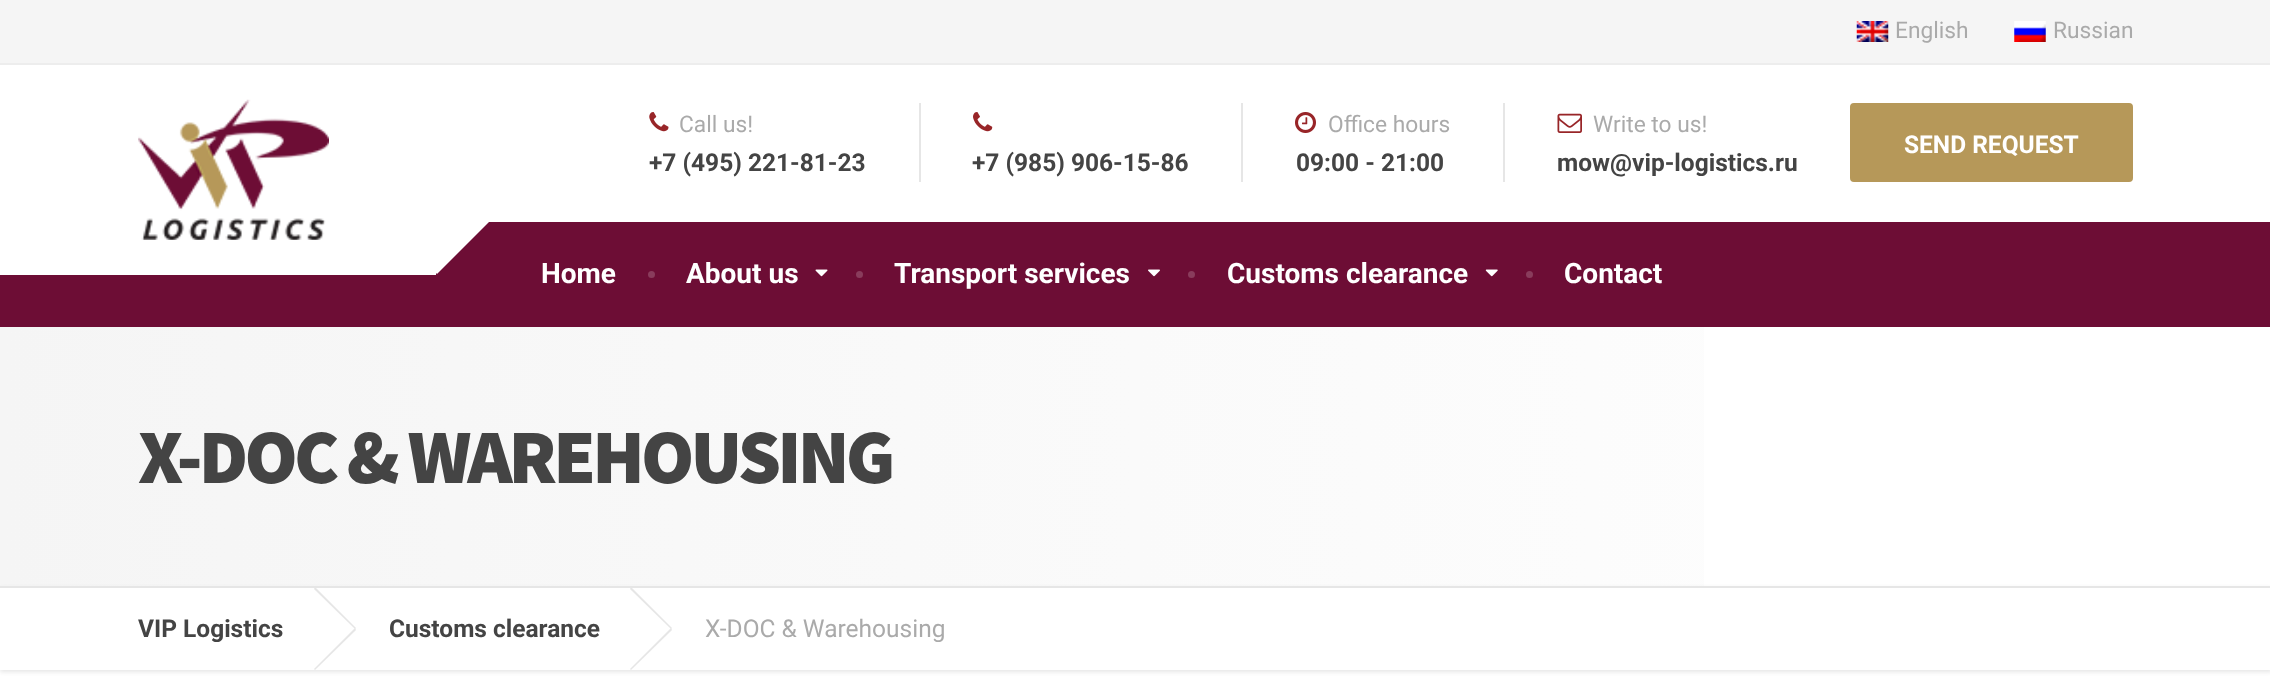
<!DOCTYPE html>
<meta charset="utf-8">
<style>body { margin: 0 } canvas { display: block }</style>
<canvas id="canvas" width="2270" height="681"></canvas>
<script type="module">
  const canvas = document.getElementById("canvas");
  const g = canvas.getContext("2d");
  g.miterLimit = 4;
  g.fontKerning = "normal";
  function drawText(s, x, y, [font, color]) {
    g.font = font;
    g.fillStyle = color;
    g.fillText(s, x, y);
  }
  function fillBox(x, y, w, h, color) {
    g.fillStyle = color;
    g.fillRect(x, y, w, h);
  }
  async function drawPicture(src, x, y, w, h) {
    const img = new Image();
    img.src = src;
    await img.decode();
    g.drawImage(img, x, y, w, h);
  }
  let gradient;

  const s1 = ["22.75px Roboto", "#AAAAAA"];
  const s2 = ["bold 24.5px Roboto", "#444444"];
  const s3 = ["bold 24.5px Roboto", "#FFFFFF"];
  const s4 = ["bold 28px Roboto", "#FFFFFF"];
  const s5 = ["900 77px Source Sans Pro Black", "#444444"];
  const s6 = ["24.5px Roboto", "#AAAAAA"];

  fillBox(0, 0, 2270, 681, "#FFFFFF");
  fillBox(0, 0, 2270, 63, "#F5F5F5");
  fillBox(0, 63, 2270, 2, "#EDEDED");
  await drawPicture("pic1.png", 1856, 21, 33, 21);
  drawText("English", 1895, 38, s1);
  await drawPicture("pic2.png", 2014, 21, 32, 21);
  drawText("Russian", 2053, 38, s1);
  fillBox(0, 222, 2270, 105, "#6D0D35");
  fillBox(0, 222, 436, 53, "#FFFFFF");
  await drawPicture("pic3.png", 138, 99, 191, 141);
  g.beginPath();
  g.moveTo(490, 221);
  g.lineTo(437, 274);
  g.lineTo(383, 221);
  g.lineTo(437, 168);
  g.closePath();
  g.fill();
  await drawPicture("pic4.png", 649, 112, 20, 20);
  drawText("Call us!", 679, 132, s1);
  drawText("+7 (495) 221-81-23", 649, 171, s2);
  fillBox(1241, 103, 2, 79, "#E6E6E6");
  await drawPicture("pic5.png", 1295, 112, 21, 21);
  drawText("Office hours", 1328, 132, s1);
  drawText("09:00 - 21:00", 1296, 171, s2);
  fillBox(1503, 103, 2, 79, "#E6E6E6");
  await drawPicture("pic6.png", 1557, 113, 25, 20);
  drawText("Write to us!", 1593, 132, s1);
  drawText("mow@vip-logistics.ru", 1557, 171, s2);
  g.fillStyle = "#B69859";
  g.beginPath();
  g.roundRect(1851, 104, 281, 77, 3);
  g.fill();
  g.strokeStyle = "#B69859";
  g.lineWidth = 2;
  g.stroke();
  drawText("SEND REQUEST", 1904, 153, s3);
  fillBox(919, 103, 2, 79, "#E6E6E6");
  await drawPicture("pic7.png", 973, 112, 20, 20);
  drawText("+7 (985) 906-15-86", 972, 171, s2);
  drawText("Home", 541, 283, s4);
  g.fillStyle = "#893C5C";
  g.beginPath();
  g.arc(651.5, 274.5, 3.5, 0, Math.PI * 2);
  g.fill();
  drawText("About us", 686, 283, s4);
  g.fillStyle = "#893C5C";
  g.beginPath();
  g.arc(859.5, 274.5, 3.5, 0, Math.PI * 2);
  g.fill();
  await drawPicture("pic8.png", 815, 269, 13, 8);
  drawText("Transport services", 894, 283, s4);
  g.fillStyle = "#893C5C";
  g.beginPath();
  g.arc(1191.5, 274.5, 3.5, 0, Math.PI * 2);
  g.fill();
  await drawPicture("pic9.png", 1148, 269, 12, 8);
  drawText("Customs clearance", 1227, 283, s4);
  g.fillStyle = "#893C5C";
  g.beginPath();
  g.arc(1529.5, 274.5, 3.5, 0, Math.PI * 2);
  g.fill();
  await drawPicture("pic10.png", 1485, 269, 13, 8);
  drawText("Contact", 1564, 283, s4);
  gradient = g.createLinearGradient(0, 457, 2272, 457);
  gradient.addColorStop(0, "#F5F5F5");
  gradient.addColorStop(1, "#FFFFFF");
  g.fillStyle = gradient;
  g.fillRect(0, 327, 1704, 259);
  g.letterSpacing = "-3.8px";
  drawText("X-DOC & WAREHOUSING", 138, 483, s5);
  g.save();
  g.beginPath();
  g.moveTo(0, 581);
  g.lineTo(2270, 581);
  g.lineTo(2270, 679);
  g.lineTo(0, 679);
  g.closePath();
  g.moveTo(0, 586);
  g.lineTo(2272, 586);
  g.lineTo(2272, 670);
  g.lineTo(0, 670);
  g.closePath();
  g.clip("evenodd");
  g.fillStyle = "#E6E6E6";
  g.filter = "blur(2px)";
  g.beginPath();
  g.rect(0, 588, 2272, 84);
  g.fill();
  g.filter = "none";
  g.restore();
  fillBox(0, 586, 2270, 2, "#E6E6E6");
  g.letterSpacing = "0px";
  drawText("VIP Logistics", 138, 637, s2);
  g.fillStyle = "#E6E6E6";
  g.beginPath();
  g.moveTo(314, 589);
  g.lineTo(315, 587);
  g.lineTo(356, 628);
  g.lineTo(355, 629);
  g.closePath();
  g.fill();
  g.beginPath();
  g.moveTo(355, 628);
  g.lineTo(356, 630);
  g.lineTo(315, 670);
  g.lineTo(314, 669);
  g.closePath();
  g.fill();
  drawText("Customs clearance", 389, 637, s2);
  g.fillStyle = "#E6E6E6";
  g.beginPath();
  g.moveTo(630, 589);
  g.lineTo(631, 587);
  g.lineTo(672, 628);
  g.lineTo(671, 629);
  g.closePath();
  g.fill();
  g.beginPath();
  g.moveTo(671, 628);
  g.lineTo(672, 630);
  g.lineTo(631, 670);
  g.lineTo(630, 669);
  g.closePath();
  g.fill();
  drawText("X-DOC & Warehousing", 705, 637, s6);
</script>
